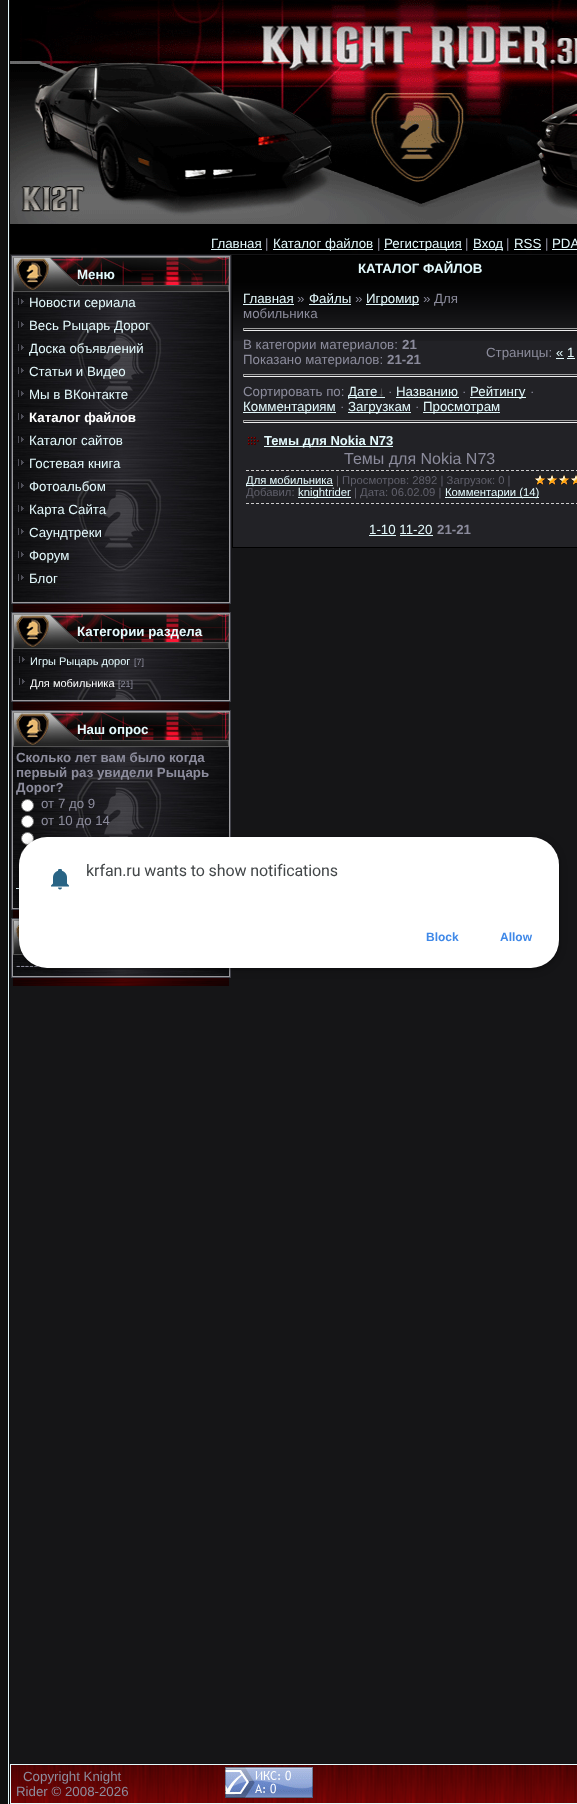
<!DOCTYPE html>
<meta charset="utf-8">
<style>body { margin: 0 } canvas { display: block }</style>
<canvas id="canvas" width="577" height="1804"></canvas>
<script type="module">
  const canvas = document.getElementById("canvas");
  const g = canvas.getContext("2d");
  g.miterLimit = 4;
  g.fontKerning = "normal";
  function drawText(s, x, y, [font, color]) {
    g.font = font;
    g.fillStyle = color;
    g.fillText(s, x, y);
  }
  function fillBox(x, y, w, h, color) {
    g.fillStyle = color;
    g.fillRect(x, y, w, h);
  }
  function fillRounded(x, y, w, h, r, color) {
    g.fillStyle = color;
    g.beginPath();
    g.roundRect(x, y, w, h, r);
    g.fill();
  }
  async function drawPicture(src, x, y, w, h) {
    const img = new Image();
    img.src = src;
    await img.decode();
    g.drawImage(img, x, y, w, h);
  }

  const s1 = ["13.3px Liberation Sans", "#E4FAFD"];
  const s2 = ["13.3px Liberation Sans", "#8C8C9C"];
  const s3 = ["bold 13.3px Liberation Sans", "#E4FAFD"];
  const s4 = ["bold 13.3px Liberation Sans", "#FFFFFF"];
  const s5 = ["11px Liberation Sans", "#E4FAFD"];
  const s6 = ["9px Liberation Sans", "#8C8C9C"];
  const s7 = ["11px Liberation Sans", "#FFFFFF"];
  const s8 = ["bold 13.3px Liberation Sans", "#8C8C9C"];
  const s9 = ["13.3px Liberation Sans", "#69696A"];
  const s10 = ["bold 13px Liberation Sans", "#E4FAFD"];
  const s11 = ["16px Liberation Sans", "#8C8C9C"];
  const s12 = ["11.3px Liberation Sans", "#E4FAFD"];
  const s13 = ["11.3px Liberation Sans", "#60606B"];
  const s14 = ["16px Roboto", "#434749"];
  const s15 = ["bold 12px Liberation Sans", "#4089E8"];

  fillBox(0, 0, 577, 1804, "#151517");
  await drawPicture("pic1.png", 0, 0, 10, 1804);
  await drawPicture("pic2.png", 10, 224, 567, 30);
  await drawPicture("pic3.png", 10, 0, 567, 224);
  drawText("Главная", 211, 248, s1);
  fillBox(211, 249, 51, 1, "#E4FAFD");
  drawText("|", 265, 248, s2);
  fillBox(273, 249, 100, 1, "#E4FAFD");
  drawText("Каталог файлов", 273, 248, s1);
  drawText("|", 377, 248, s2);
  fillBox(384, 249, 78, 1, "#E4FAFD");
  drawText("Регистрация", 384, 248, s1);
  drawText("|", 465, 248, s2);
  fillBox(473, 249, 30, 1, "#E4FAFD");
  drawText("Вход", 473, 248, s1);
  drawText("|", 506, 248, s2);
  drawText("RSS", 514, 248, s1);
  fillBox(514, 249, 27, 1, "#E4FAFD");
  drawText("|", 545, 248, s2);
  drawText("PDA", 552, 248, s1);
  fillBox(552, 249, 25, 1, "#E4FAFD");
  g.fillStyle = "#9A9A9E";
  g.beginPath();
  g.rect(11.5, 255.5, 219, 348);
  g.fill();
  g.strokeStyle = "#43434B";
  g.stroke();
  await drawPicture("pic4.png", 13, 257, 216, 35);
  drawText("Меню", 77, 279, s3);
  await drawPicture("pic5.png", 13, 292, 216, 310);
  await drawPicture("pic6.png", 18, 298, 6, 7);
  drawText("Новости сериала", 29, 307, s1);
  await drawPicture("pic7.png", 18, 321, 6, 7);
  drawText("Весь Рыцарь Дорог", 29, 330, s1);
  await drawPicture("pic8.png", 18, 344, 6, 7);
  drawText("Доска объявлений", 29, 353, s1);
  await drawPicture("pic9.png", 18, 367, 6, 7);
  drawText("Статьи и Видео", 29, 376, s1);
  await drawPicture("pic10.png", 18, 390, 6, 7);
  drawText("Мы в ВКонтакте", 29, 399, s1);
  await drawPicture("pic11.png", 18, 413, 6, 7);
  drawText("Каталог файлов", 29, 422, s4);
  await drawPicture("pic12.png", 18, 436, 6, 7);
  drawText("Каталог сайтов", 29, 445, s1);
  await drawPicture("pic13.png", 18, 459, 6, 7);
  drawText("Гостевая книга", 29, 468, s1);
  await drawPicture("pic14.png", 18, 482, 6, 7);
  drawText("Фотоальбом", 29, 491, s1);
  await drawPicture("pic15.png", 18, 505, 6, 7);
  drawText("Карта Сайта", 29, 514, s1);
  await drawPicture("pic16.png", 18, 528, 6, 7);
  drawText("Саундтреки", 29, 537, s1);
  await drawPicture("pic17.png", 18, 551, 6, 7);
  drawText("Форум", 29, 560, s1);
  await drawPicture("pic18.png", 18, 574, 6, 7);
  drawText("Блог", 29, 583, s1);
  await drawPicture("pic19.png", 13, 604, 216, 8);
  g.fillStyle = "#9A9A9E";
  g.beginPath();
  g.rect(11.5, 612.5, 219, 89);
  g.fill();
  g.stroke();
  await drawPicture("pic4.png", 13, 614, 216, 35);
  drawText("Категории раздела", 77, 636, s3);
  await drawPicture("pic20.png", 13, 649, 216, 51);
  await drawPicture("pic21.png", 19, 656, 6, 7);
  drawText("Игры Рыцарь дорог", 30, 665, s5);
  drawText("[7]", 134, 665, s6);
  await drawPicture("pic22.png", 19, 678, 6, 7);
  drawText("Для мобильника", 30, 687, s7);
  drawText("[21]", 118, 687, s6);
  await drawPicture("pic19.png", 13, 702, 216, 8);
  g.fillStyle = "#9A9A9E";
  g.beginPath();
  g.rect(11.5, 710.5, 219, 199);
  g.fill();
  g.stroke();
  await drawPicture("pic4.png", 13, 712, 216, 35);
  drawText("Наш опрос", 77, 734, s3);
  await drawPicture("pic23.png", 13, 747, 216, 161);
  drawText("Сколько лет вам было когда", 16, 762, s8);
  drawText("первый раз увидели Рыцарь", 16, 777, s8);
  drawText("Дорог?", 16, 792, s8);
  g.fillStyle = "#FFFFFF";
  g.beginPath();
  g.arc(27.5, 805.5, 6, 0, Math.PI * 2);
  g.fill();
  g.strokeStyle = "#767676";
  g.stroke();
  drawText("от 7 до 9", 41, 808, s2);
  g.fillStyle = "#FFFFFF";
  g.beginPath();
  g.arc(27.5, 821.5, 6, 0, Math.PI * 2);
  g.fill();
  g.stroke();
  drawText("от 10 до 14", 41, 825, s2);
  g.fillStyle = "#FFFFFF";
  g.beginPath();
  g.arc(27.5, 838.5, 6, 0, Math.PI * 2);
  g.fill();
  g.stroke();
  g.beginPath();
  g.arc(27.5, 854.5, 6, 0, Math.PI * 2);
  g.stroke();
  fillBox(16, 888, 3, 1, "#E4FAFD");
  await drawPicture("pic24.png", 13, 910, 6, 8);
  g.fillStyle = "#9A9A9E";
  g.beginPath();
  g.rect(11.5, 918.5, 219, 59);
  g.fill();
  g.strokeStyle = "#43434B";
  g.stroke();
  await drawPicture("pic25.png", 13, 920, 11, 35);
  await drawPicture("pic26.png", 13, 955, 216, 21);
  drawText("-----", 16, 970, s2);
  await drawPicture("pic19.png", 13, 978, 216, 8);
  g.strokeStyle = "#000000";
  g.strokeRect(232.5, 255.5, 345, 292);
  fillBox(233, 256, 344, 25, "#020202");
  drawText("КАТАЛОГ ФАЙЛОВ", 358, 273, s3);
  fillBox(233, 341, 344, 206, "#222226");
  await drawPicture("pic27.png", 233, 281, 344, 60);
  drawText("Главная", 243, 303, s1);
  fillBox(243, 304, 51, 1, "#E4FAFD");
  drawText("»", 297, 303, s2);
  drawText("Файлы", 309, 303, s1);
  fillBox(309, 304, 42, 1, "#E4FAFD");
  drawText("»", 355, 303, s2);
  fillBox(366, 304, 53, 1, "#E4FAFD");
  drawText("Игромир", 366, 303, s1);
  drawText("» Для", 423, 303, s2);
  drawText("мобильника", 243, 318, s2);
  fillBox(243, 328, 334, 1, "#9F9F9F");
  fillBox(243, 330, 334, 1, "#EEEEEE");
  fillBox(243, 328, 1, 3, "#9F9F9F");
  drawText("В категории материалов:", 243, 349, s2);
  drawText("21", 402, 349, s8);
  drawText("Показано материалов:", 243, 364, s2);
  drawText("21-21", 387, 364, s8);
  drawText("Страницы:", 486, 357, s2);
  drawText("« 1", 556, 357, s1);
  fillBox(556, 358, 8, 1, "#E4FAFD");
  fillBox(567, 358, 8, 1, "#E4FAFD");
  fillBox(243, 374, 334, 1, "#9F9F9F");
  fillBox(243, 376, 334, 1, "#EEEEEE");
  fillBox(243, 374, 1, 3, "#9F9F9F");
  drawText("Сортировать по:", 243, 396, s2);
  fillBox(348, 397, 37, 1, "#E4FAFD");
  drawText("Дате", 348, 396, s1);
  drawText("↓", 378, 396, s9);
  drawText("·", 388, 396, s2);
  drawText("Названию", 396, 396, s1);
  fillBox(396, 397, 63, 1, "#E4FAFD");
  drawText("·", 462, 396, s2);
  fillBox(470, 397, 56, 1, "#E4FAFD");
  drawText("Рейтингу", 470, 396, s1);
  drawText("·", 530, 396, s2);
  fillBox(243, 412, 93, 1, "#E4FAFD");
  drawText("Комментариям", 243, 411, s1);
  drawText("·", 340, 411, s2);
  fillBox(348, 412, 63, 1, "#E4FAFD");
  drawText("Загрузкам", 348, 411, s1);
  drawText("·", 415, 411, s2);
  fillBox(423, 412, 77, 1, "#E4FAFD");
  drawText("Просмотрам", 423, 411, s1);
  fillBox(243, 420, 334, 1, "#9F9F9F");
  fillBox(243, 422, 334, 1, "#EEEEEE");
  fillBox(243, 420, 1, 3, "#9F9F9F");
  await drawPicture("pic28.png", 248, 437, 11, 8);
  fillBox(264, 446, 129, 1, "#E4FAFD");
  drawText("Темы для Nokia N73", 264, 445, s10);
  drawText("Темы для Nokia N73", 344, 464, s11);
  g.beginPath();
  g.moveTo(246, 470.5);
  g.lineTo(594, 470.5);
  g.strokeStyle = "#CCCCCC";
  g.setLineDash([3, 2]);
  g.stroke();
  g.beginPath();
  g.moveTo(246, 503.5);
  g.lineTo(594, 503.5);
  g.stroke();
  fillBox(246, 485, 87, 1, "#E4FAFD");
  drawText("Для мобильника", 246, 484, s12);
  drawText("| Просмотров: 2892 | Загрузок: 0 |", 336, 484, s13);
  await drawPicture("pic29.png", 535, 475, 42, 10);
  await drawPicture("pic30.png", 534, 474, 43, 11);
  drawText("Добавил:", 246, 496, s13);
  fillBox(298, 497, 53, 1, "#E4FAFD");
  drawText("knightrider", 298, 496, s12);
  drawText("| Дата: 06.02.09 |", 354, 496, s13);
  fillBox(445, 497, 94, 1, "#E4FAFD");
  drawText("Комментарии (14)", 445, 496, s12);
  drawText("1-10 11-20", 369, 534, s1);
  fillBox(369, 535, 27, 1, "#E4FAFD");
  fillBox(400, 535, 33, 1, "#E4FAFD");
  drawText("21-21", 437, 534, s8);
  await drawPicture("pic31.png", 11, 1765, 566, 38);
  g.strokeStyle = "#E4FAFD";
  g.setLineDash([]);
  g.strokeRect(10.5, 1764.5, 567, 39);
  drawText("Copyright Knight", 23, 1781, s2);
  drawText("Rider © 2008-2026", 16, 1796, s2);
  await drawPicture("pic32.png", 225, 1767, 88, 31);
  g.fillStyle = "rgba(0, 0, 0, 0.15)";
  g.filter = "blur(3px)";
  g.beginPath();
  g.roundRect(17, 837, 544, 135, 30);
  g.fill();
  g.filter = "none";
  g.fillStyle = "rgba(0, 0, 0, 0.3)";
  g.filter = "blur(1px)";
  g.beginPath();
  g.roundRect(19, 838, 540, 131, 28);
  g.fill();
  g.filter = "none";
  fillRounded(19, 837, 540, 131, 28, "#FFFFFF");
  await drawPicture("pic33.png", 51, 869, 18, 21);
  g.letterSpacing = "-0.1px";
  drawText("krfan.ru wants to show notifications", 86, 876, s14);
  g.letterSpacing = "0px";
  drawText("Block", 426, 941, s15);
  drawText("Allow", 500, 941, s15);
</script>
